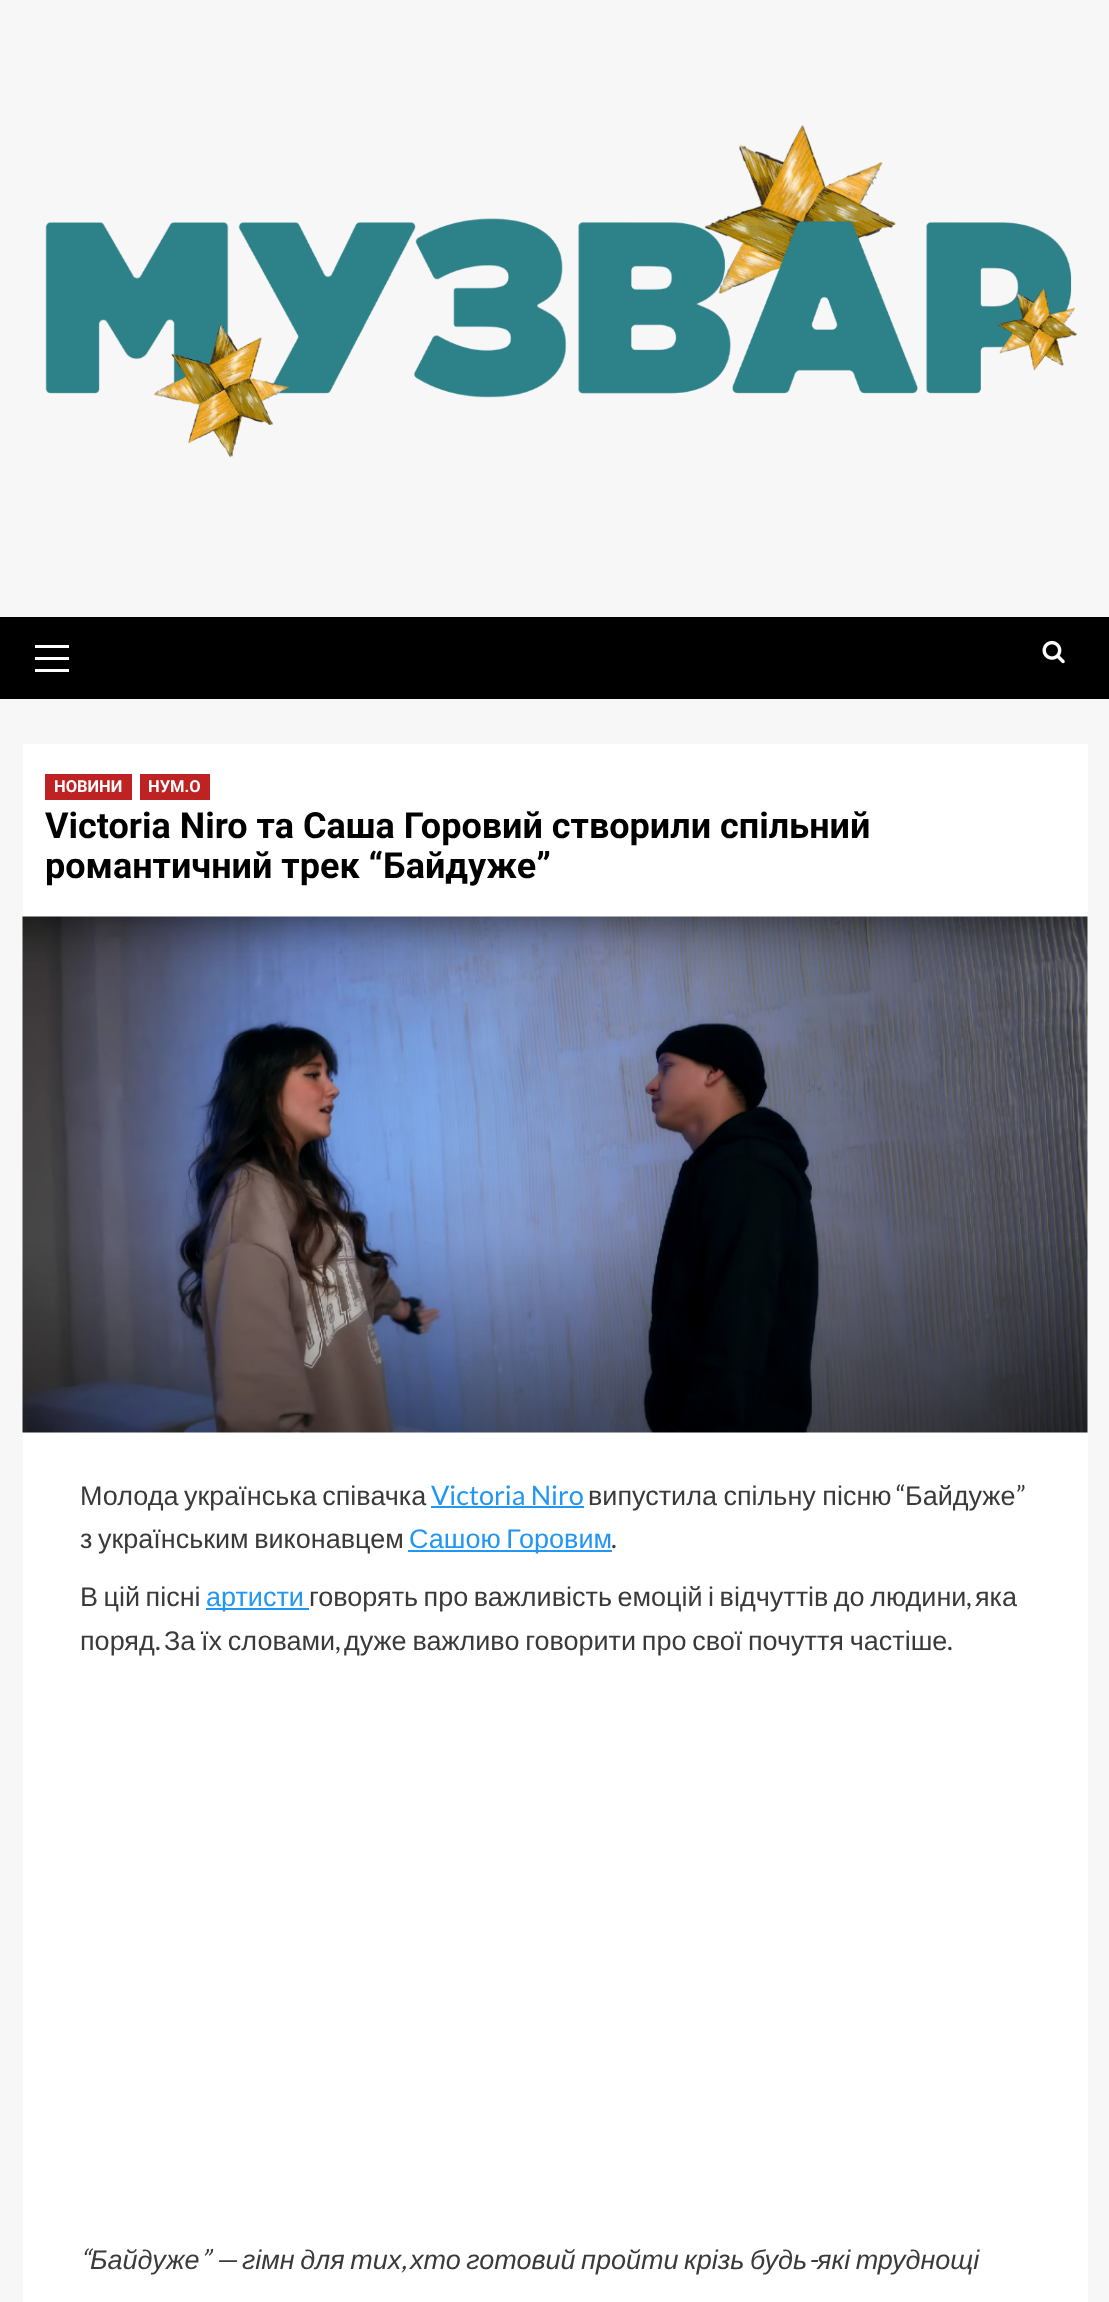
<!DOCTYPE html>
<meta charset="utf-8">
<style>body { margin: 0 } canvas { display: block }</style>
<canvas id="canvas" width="1109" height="2302"></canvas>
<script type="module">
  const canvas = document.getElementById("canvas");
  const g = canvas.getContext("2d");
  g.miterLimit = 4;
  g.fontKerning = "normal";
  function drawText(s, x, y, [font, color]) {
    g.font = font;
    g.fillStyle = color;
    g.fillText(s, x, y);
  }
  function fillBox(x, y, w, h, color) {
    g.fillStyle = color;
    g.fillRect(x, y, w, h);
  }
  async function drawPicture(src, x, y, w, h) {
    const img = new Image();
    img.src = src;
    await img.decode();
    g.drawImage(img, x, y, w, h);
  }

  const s1 = ["bold 16.5px Roboto", "#FFFFFF"];
  const s2 = ["bold 36px Roboto", "#000000"];
  const s3 = ["27px Liberation Sans", "#3A3A3A"];
  const s4 = ["27px Lato", "#2196F3"];
  const s5 = ["27px Lato", "#3A3A3A"];
  const s6 = ["27px Liberation Sans", "#2196F3"];
  const s7 = ["italic 27px Lato", "#3A3A3A"];
  const s8 = ["italic 27px Liberation Sans", "#3A3A3A"];

  fillBox(0, 0, 1109, 2302, "#F7F7F7");
  await drawPicture("pic1.png", 45, 125, 1032, 333);
  fillBox(0, 617, 1109, 82, "#000000");
  fillBox(35, 657, 34, 3, "#FFFFFF");
  fillBox(35, 645, 34, 3, "#FFFFFF");
  fillBox(35, 669, 34, 3, "#FFFFFF");
  await drawPicture("pic2.png", 1042, 640, 23, 24);
  fillBox(23, 744, 1065, 1558, "#FFFFFF");
  fillBox(45, 774, 87, 26, "#BE2222");
  drawText("НОВИНИ", 54, 792, s1);
  fillBox(140, 774, 70, 26, "#BE2222");
  drawText("НУМ.О", 148, 792, s1);
  drawText("Victoria Niro та Саша Горовий створили спільний", 45, 838, s2);
  drawText("романтичний трек “Байдуже”", 45, 878, s2);
  await drawPicture("pic3.png", 22, 916, 1066, 517);
  g.wordSpacing = "-2px";
  drawText("Молода українська співачка", 80, 1505, s3);
  g.wordSpacing = "0px";
  drawText("Victoria Niro", 431, 1505, s4);
  fillBox(431, 1506, 153, 2, "#2196F3");
  g.wordSpacing = "-1px";
  drawText("випустила спільну пісню", 588, 1505, s3);
  g.wordSpacing = "0px";
  drawText("“", 896, 1505, s5);
  drawText("Байдуже", 905, 1505, s3);
  drawText("”", 1016, 1505, s5);
  g.wordSpacing = "-2px";
  drawText("з українським виконавцем", 80, 1548, s3);
  fillBox(408, 1550, 204, 2, "#2196F3");
  drawText("Сашою Горовим", 409, 1548, s6);
  g.wordSpacing = "0px";
  drawText(".", 611, 1548, s5);
  g.wordSpacing = "-2px";
  drawText("В цій пісні", 80, 1606, s3);
  fillBox(206, 1608, 103, 2, "#2196F3");
  g.wordSpacing = "0px";
  drawText("артисти", 206, 1606, s6);
  g.wordSpacing = "-2px";
  drawText("говорять про важливість емоцій і відчуттів до людини", 309, 1606, s3);
  g.wordSpacing = "0px";
  drawText(",", 966, 1606, s5);
  drawText("яка", 975, 1606, s3);
  drawText("поряд", 80, 1650, s3);
  drawText(".", 155, 1650, s5);
  g.wordSpacing = "-1.75px";
  drawText("За їх словами", 164, 1650, s3);
  g.wordSpacing = "0px";
  drawText(",", 335, 1650, s5);
  g.wordSpacing = "-1.75px";
  drawText("дуже важливо говорити про свої почуття частіше", 344, 1650, s3);
  g.wordSpacing = "0px";
  drawText(".", 947, 1650, s5);
  drawText("“", 80, 2269, s7);
  drawText("Байдуже", 90, 2269, s8);
  drawText("” —", 200, 2269, s7);
  g.wordSpacing = "-2px";
  drawText("гімн для тих", 242, 2269, s8);
  drawText("хто готовий пройти крізь будь", 410, 2269, s8);
  g.wordSpacing = "0px";
  drawText("-", 808, 2269, s7);
  g.wordSpacing = "-2px";
  drawText("які труднощі", 817, 2269, s8);
  g.wordSpacing = "0px";
  drawText(",", 401, 2269, s7);
</script>
